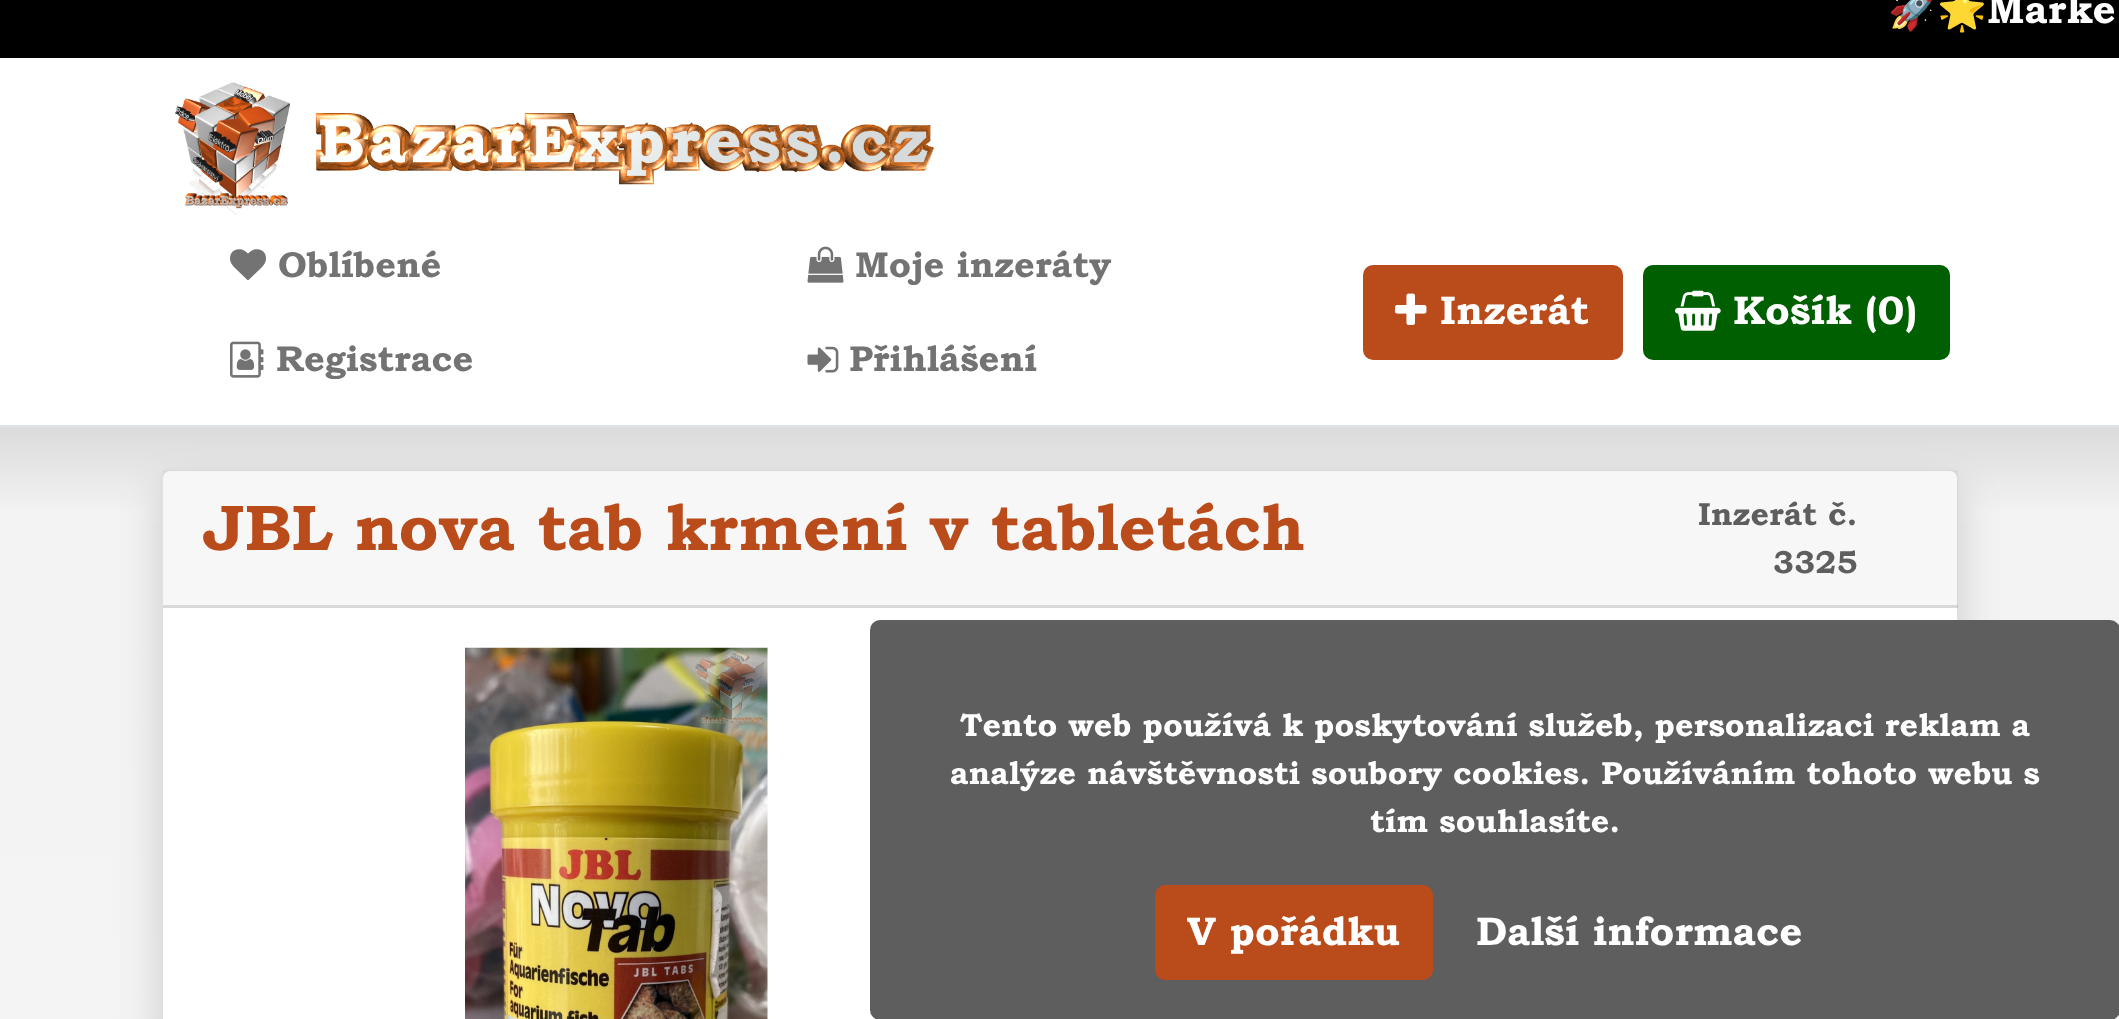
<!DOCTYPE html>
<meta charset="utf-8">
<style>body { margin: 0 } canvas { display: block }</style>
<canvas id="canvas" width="2119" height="1019"></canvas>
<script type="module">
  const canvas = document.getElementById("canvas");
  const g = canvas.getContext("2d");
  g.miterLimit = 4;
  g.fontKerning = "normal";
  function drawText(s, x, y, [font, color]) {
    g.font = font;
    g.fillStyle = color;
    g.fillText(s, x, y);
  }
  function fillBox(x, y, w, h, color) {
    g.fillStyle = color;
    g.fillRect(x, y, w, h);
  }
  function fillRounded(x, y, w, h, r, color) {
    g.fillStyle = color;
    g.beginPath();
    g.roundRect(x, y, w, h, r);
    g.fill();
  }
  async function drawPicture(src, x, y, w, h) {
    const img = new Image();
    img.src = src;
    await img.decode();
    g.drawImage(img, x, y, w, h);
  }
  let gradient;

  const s1 = ["40px Noto Color Emoji", "#FFFFFF"];
  const s2 = ["bold 40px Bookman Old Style", "#FFFFFF"];
  const s3 = ["bold 36px Bookman Old Style", "#737373"];
  const s4 = ["bold 64.75px Bookman Old Style", "#BA4B1A"];
  const s5 = ["bold 32px Bookman Old Style", "#5E5E5E"];
  const s6 = ["bold 32px Bookman Old Style", "#FFFFFF"];

  fillBox(0, 0, 2119, 1019, "#FFFFFF");
  fillBox(0, 0, 2119, 58, "#000000");
  drawText("🚀🌟", 1888, 23, s1);
  drawText("Marke", 1987, 23, s2);
  fillBox(0, 425, 2119, 3, "#DEE2E6");
  await drawPicture("pic1.png", 175, 82, 115, 133);
  await drawPicture("pic2.png", 315, 113, 620, 72);
  await drawPicture("pic3.png", 230, 249, 36, 31);
  drawText("Oblíbené", 278, 277, s3);
  await drawPicture("pic4.png", 807, 246, 37, 37);
  drawText("Moje inzeráty", 855, 277, s3);
  await drawPicture("pic5.png", 230, 341, 34, 37);
  drawText("Registrace", 276, 371, s3);
  await drawPicture("pic6.png", 807, 346, 32, 27);
  drawText("Přihlášení", 849, 371, s3);
  fillRounded(1363, 265, 260, 95, 10, "#BA4B1A");
  await drawPicture("pic7.png", 1395, 293, 32, 32);
  drawText("Inzerát", 1440, 324, s2);
  fillRounded(1643, 265, 307, 95, 10, "#005F00");
  await drawPicture("pic8.png", 1675, 290, 46, 41);
  drawText("Košík (0)", 1733, 324, s2);
  gradient = g.createLinearGradient(1060, 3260, 1060, 428);
  gradient.addColorStop(0, "#F9F7F4");
  gradient.addColorStop(0.97, "#F3F3F3");
  gradient.addColorStop(1, "#DBDBDB");
  g.fillStyle = gradient;
  g.fillRect(0, 428, 2119, 591);
  g.fillStyle = "rgba(0, 0, 0, 0.15)";
  g.filter = "blur(20px)";
  g.beginPath();
  g.roundRect(160, 488, 1800, 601, 10);
  g.fill();
  g.filter = "none";
  fillRounded(160, 468, 1800, 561, 10, "#FFFFFF");
  g.beginPath();
  g.roundRect(161.5, 469.5, 1797, 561, 8.5);
  g.strokeStyle = "rgba(0, 0, 0, 0.12)";
  g.lineWidth = 3;
  g.stroke();
  fillBox(163, 470, 1795, 138, "rgba(0, 0, 0, 0.03)");
  fillBox(163, 605, 1795, 3, "rgba(0, 0, 0, 0.12)");
  drawText("JBL nova tab krmení v tabletách", 203, 550, s4);
  drawText("Inzerát č.", 1698, 525, s5);
  drawText("3325", 1773, 573, s5);
  await drawPicture("pic9.png", 465, 647, 303, 372);
  fillRounded(870, 620, 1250, 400, 10, "#5E5E5E");
  drawText("Tento web používá k poskytování služeb, personalizaci reklam a", 960, 736, s6);
  drawText("analýze návštěvnosti soubory cookies. Používáním tohoto webu s", 950, 784, s6);
  drawText("tím souhlasíte.", 1370, 832, s6);
  fillRounded(1155, 885, 278, 95, 10, "#BA4B1A");
  drawText("V pořádku", 1187, 945, s2);
  drawText("Další informace", 1476, 945, s2);
</script>
